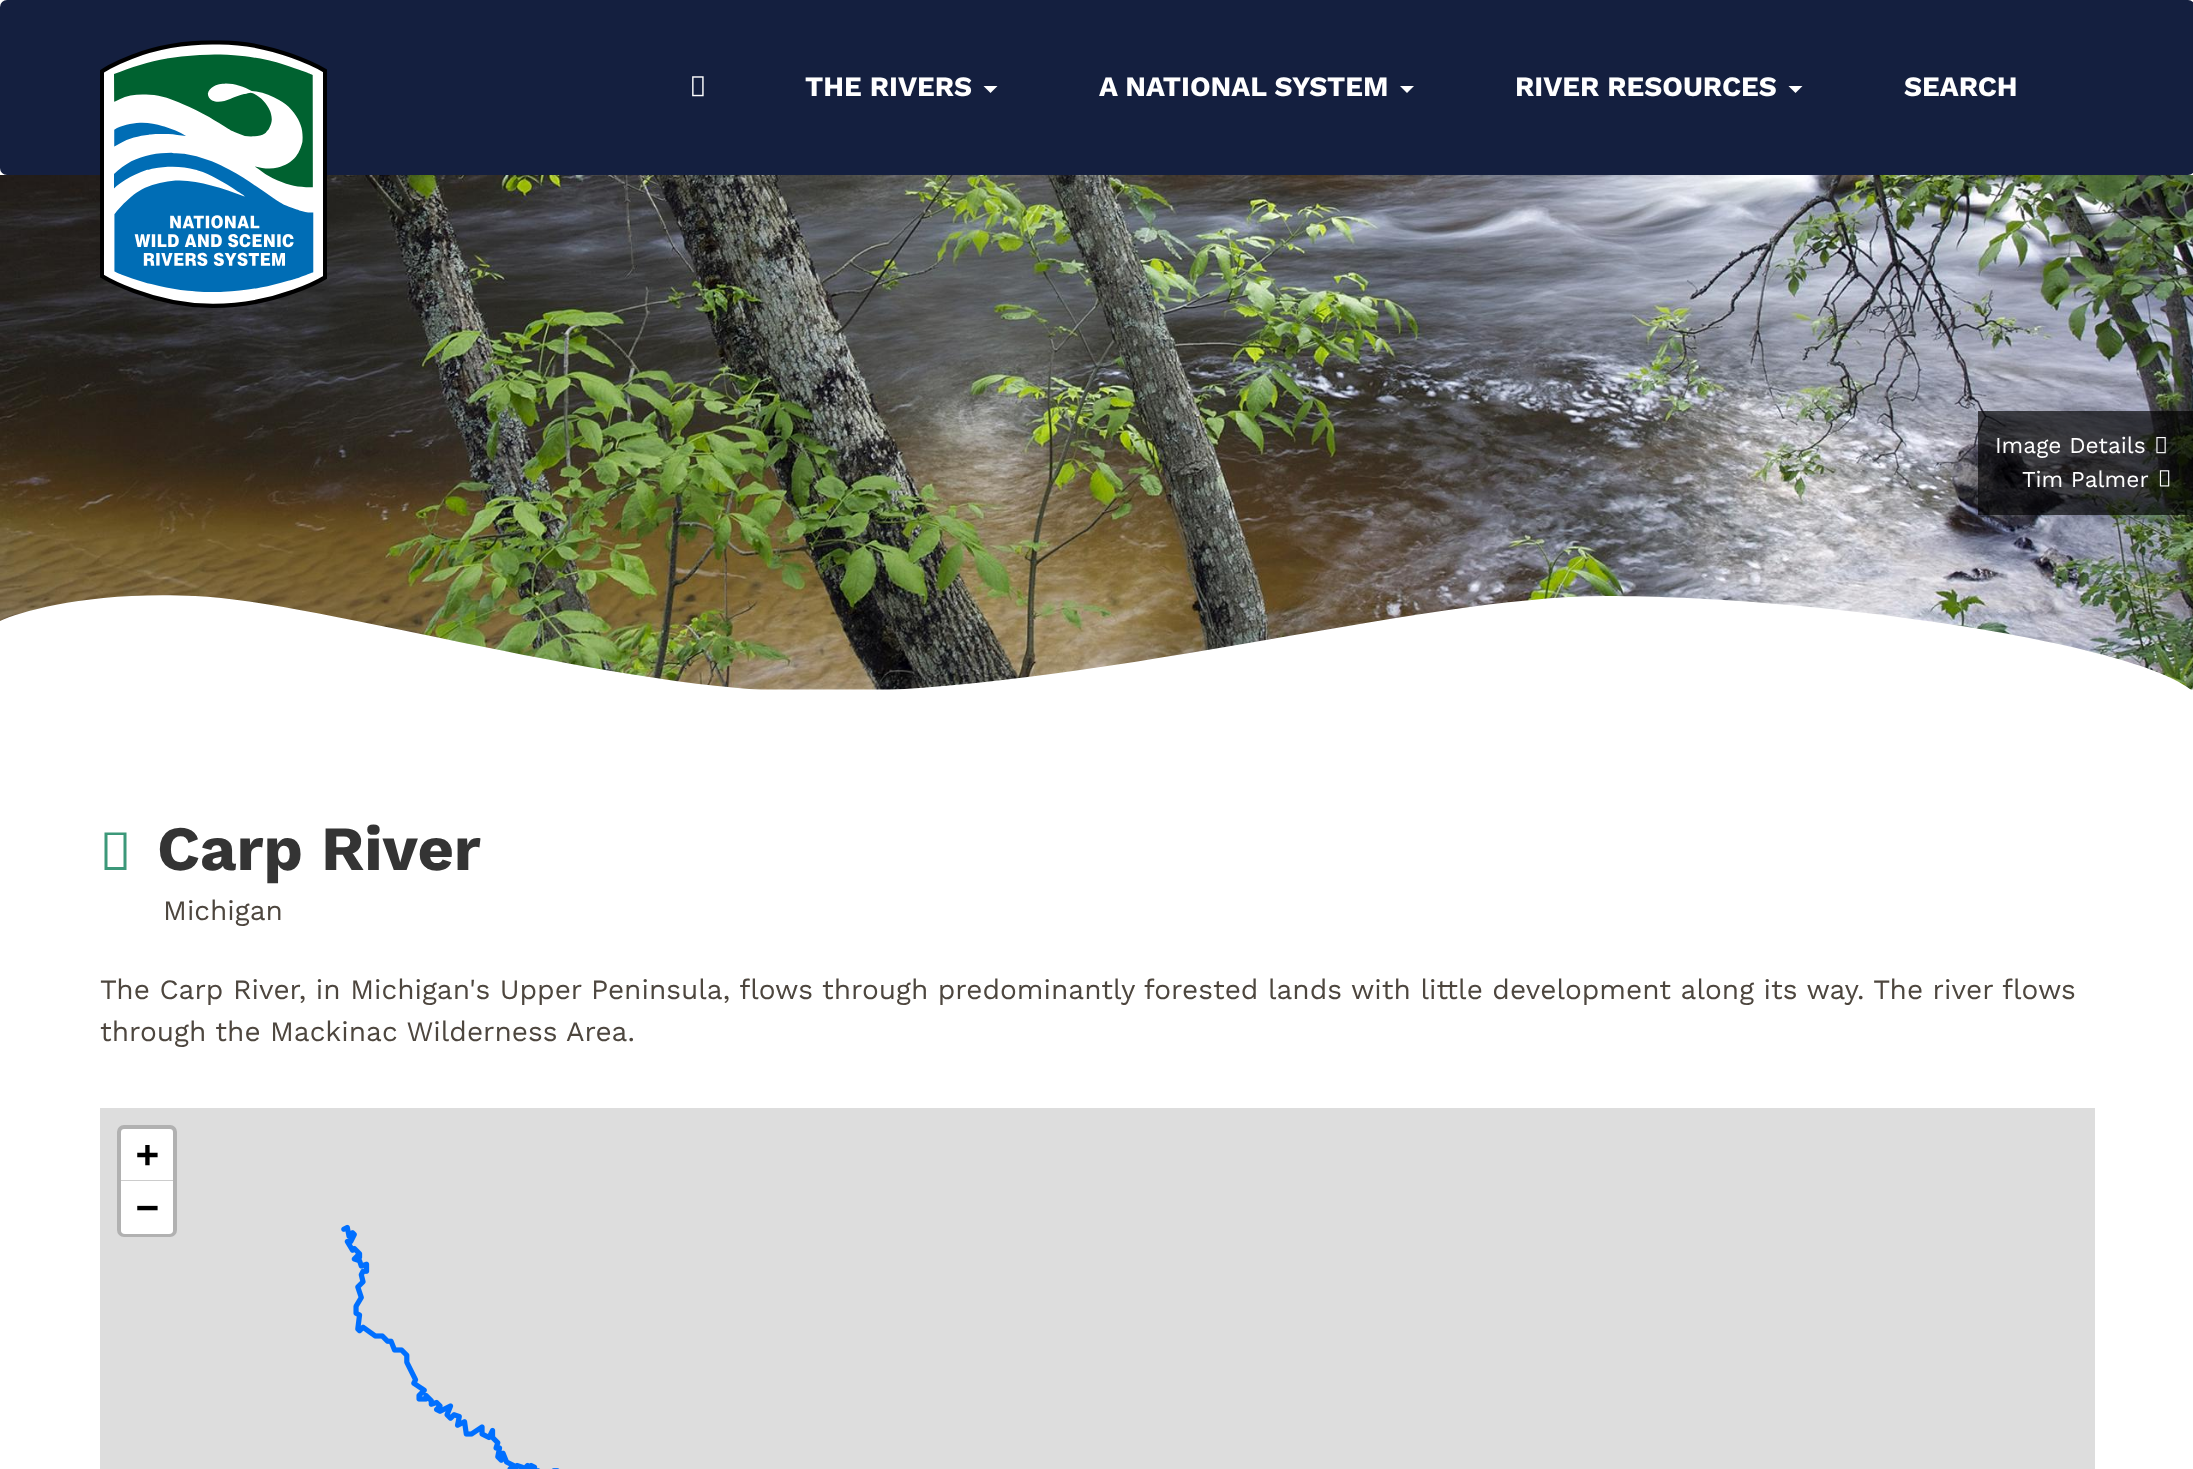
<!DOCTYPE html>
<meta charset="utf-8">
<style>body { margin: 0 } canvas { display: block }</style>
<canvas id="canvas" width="2193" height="1469"></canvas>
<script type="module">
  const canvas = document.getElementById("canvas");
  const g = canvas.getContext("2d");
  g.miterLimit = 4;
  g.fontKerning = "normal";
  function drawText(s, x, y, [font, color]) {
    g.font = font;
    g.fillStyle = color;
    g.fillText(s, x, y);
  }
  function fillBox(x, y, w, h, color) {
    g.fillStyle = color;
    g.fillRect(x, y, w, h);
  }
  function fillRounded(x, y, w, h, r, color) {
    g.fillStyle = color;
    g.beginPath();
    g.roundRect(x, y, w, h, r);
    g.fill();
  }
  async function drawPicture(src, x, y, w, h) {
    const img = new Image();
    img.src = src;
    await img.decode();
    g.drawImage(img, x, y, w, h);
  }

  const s1 = ["bold 28px Work Sans", "#FFFFFF"];
  const s2 = ["22.75px Work Sans", "#FFFFFF"];
  const s3 = ["bold 63px Work Sans", "#343434"];
  const s4 = ["28px Work Sans", "#4D463E"];
  const s5 = ["bold 38px DejaVu Sans Mono", "#000000"];

  fillBox(0, 0, 2193, 1469, "#FFFFFF");
  fillRounded(0, 0, 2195, 175, 7, "#141F3F");
  await drawPicture("pic3.png", 0, 175, 2193, 515);
  await drawPicture("pic1.png", 100, 40, 227, 268);
  await drawPicture("pic2.png", 692, 76, 12, 21);
  drawText("THE RIVERS", 805, 96, s1);
  g.beginPath();
  g.moveTo(983.5, 86);
  g.lineTo(997.5, 86);
  g.lineTo(990.5, 93);
  g.closePath();
  g.fill();
  drawText("A NATIONAL SYSTEM", 1099, 96, s1);
  g.beginPath();
  g.moveTo(1400, 86);
  g.lineTo(1414, 86);
  g.lineTo(1407, 93);
  g.closePath();
  g.fill();
  drawText("RIVER RESOURCES", 1515, 96, s1);
  g.beginPath();
  g.moveTo(1788.5, 86);
  g.lineTo(1802.5, 86);
  g.lineTo(1795.5, 93);
  g.closePath();
  g.fill();
  drawText("SEARCH", 1904, 96, s1);
  fillBox(1978, 411, 215, 104, "rgba(0, 0, 0, 0.66)");
  drawText("Image Details", 1995, 453, s2);
  await drawPicture("pic4.png", 2156, 437, 10, 17);
  drawText("Tim Palmer", 2022, 487, s2);
  await drawPicture("pic5.png", 2159, 470, 11, 17);
  g.save();
  g.beginPath();
  g.rect(0, 576, 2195, 117);
  g.clip();
  g.beginPath();
  g.moveTo(195, 596);
  g.bezierCurveTo(91, 591, 22, 611, 0, 621);
  g.lineTo(0, 766);
  g.lineTo(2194, 768);
  g.lineTo(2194, 692);
  g.bezierCurveTo(2138, 642, 1812, 596, 1606, 596);
  g.bezierCurveTo(1418, 596, 1089, 692, 815, 692);
  g.bezierCurveTo(621, 692, 324, 602, 195, 596);
  g.closePath();
  g.fill();
  g.restore();
  g.fillStyle = "#3C9879";
  g.beginPath();
  g.moveTo(104.5, 870);
  g.lineTo(104.5, 832.5);
  g.lineTo(126.5, 832.5);
  g.lineTo(126.5, 870);
  g.closePath();
  g.moveTo(107.5, 867);
  g.lineTo(123.5, 867);
  g.lineTo(123.5, 835);
  g.lineTo(107.5, 835);
  g.closePath();
  g.fill();
  drawText("Carp River", 157, 870, s3);
  drawText("Michigan", 163, 920, s4);
  drawText("The Carp River, in Michigan's Upper Peninsula, flows through predominantly forested lands with little development along its way. The river flows", 100, 999, s4);
  drawText("through the Mackinac Wilderness Area.", 100, 1041, s4);
  fillBox(100, 1108, 1995, 361, "#DDDDDD");
  g.beginPath();
  g.roundRect(119, 1127, 56, 108, 5);
  g.strokeStyle = "#B1B1B1";
  g.lineWidth = 4;
  g.stroke();
  g.fillStyle = "#FFFFFF";
  g.beginPath();
  g.roundRect(121, 1129, 52, 52, [4, 4, 0, 0]);
  g.fill();
  fillBox(121, 1180, 52, 1, "#CCCCCC");
  drawText("+", 136, 1167, s5);
  g.fillStyle = "#FFFFFF";
  g.beginPath();
  g.roundRect(121, 1181, 52, 53, [0, 0, 4, 4]);
  g.fill();
  drawText("−", 136, 1220, s5);
  await drawPicture("pic6.png", 341, 1224, 219, 245);
</script>
